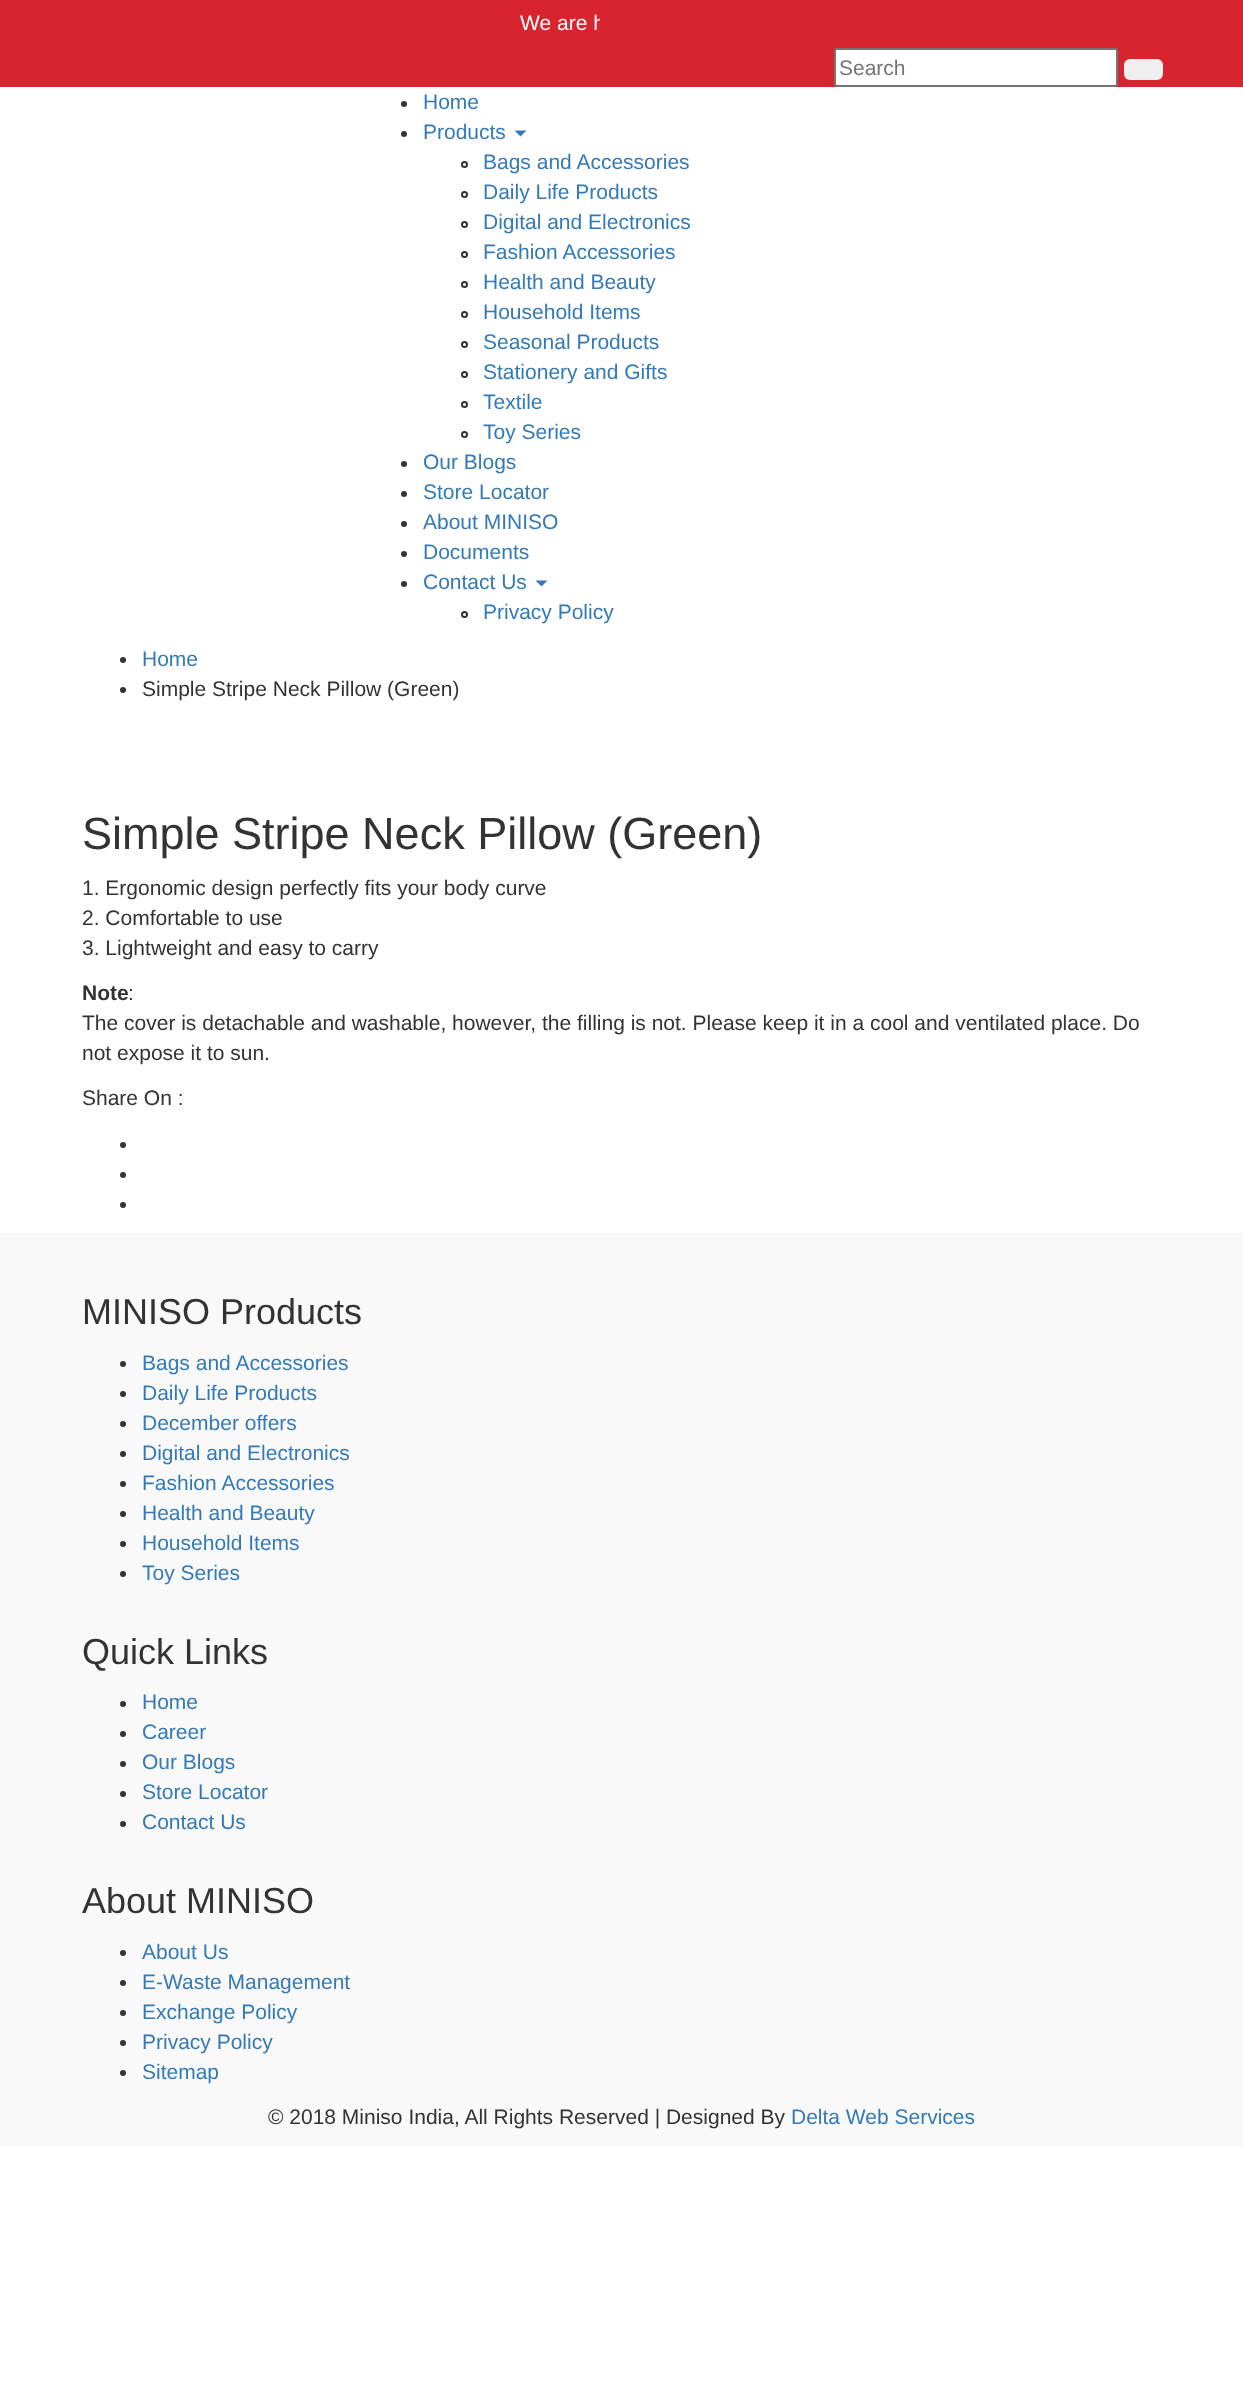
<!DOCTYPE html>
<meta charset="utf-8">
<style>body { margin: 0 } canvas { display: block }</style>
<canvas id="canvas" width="1243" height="2400"></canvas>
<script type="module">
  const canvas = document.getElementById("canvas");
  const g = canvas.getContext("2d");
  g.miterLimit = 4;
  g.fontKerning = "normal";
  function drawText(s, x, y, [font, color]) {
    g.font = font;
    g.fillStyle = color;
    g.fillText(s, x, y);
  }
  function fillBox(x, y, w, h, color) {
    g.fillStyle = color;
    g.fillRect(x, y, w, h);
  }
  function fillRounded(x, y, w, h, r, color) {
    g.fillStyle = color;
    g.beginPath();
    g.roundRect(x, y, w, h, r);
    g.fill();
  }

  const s1 = ["21px Liberation Sans", "#FFFFFF"];
  const s2 = ["21px Liberation Sans", "#757575"];
  const s3 = ["21px Liberation Sans", "#337AB7"];
  const s4 = ["21px Liberation Sans", "#333333"];
  const s5 = ["45px Liberation Sans", "#333333"];
  const s6 = ["bold 21px Liberation Sans", "#333333"];
  const s7 = ["36px Liberation Sans", "#333333"];

  fillBox(0, 0, 1243, 2400, "#FFFFFF");
  fillBox(0, 0, 1243, 87, "#D9232E");
  g.save();
  g.beginPath();
  g.rect(83, 0, 517, 41);
  g.clip();
  drawText("We are h", 520, 30, s1);
  g.restore();
  g.fillStyle = "#FFFFFF";
  g.beginPath();
  g.roundRect(835, 49, 282, 37, 2);
  g.fill();
  g.strokeStyle = "#767676";
  g.lineWidth = 2;
  g.stroke();
  drawText("Search", 839, 75, s2);
  fillRounded(1124, 59, 39, 21, 6, "#EFEFEF");
  g.fillStyle = "#333333";
  g.beginPath();
  g.arc(404, 104, 3, 0, Math.PI * 2);
  g.fill();
  drawText("Home", 423, 109, s3);
  g.fillStyle = "#333333";
  g.beginPath();
  g.arc(404, 134, 3, 0, Math.PI * 2);
  g.fill();
  drawText("Products", 423, 139, s3);
  g.beginPath();
  g.moveTo(514.5, 130.5);
  g.lineTo(526.5, 130.5);
  g.lineTo(520.5, 136.5);
  g.closePath();
  g.fill();
  g.beginPath();
  g.arc(464.5, 164.5, 2.5, 0, Math.PI * 2);
  g.strokeStyle = "#333333";
  g.stroke();
  drawText("Bags and Accessories", 483, 169, s3);
  g.beginPath();
  g.arc(464.5, 194.5, 2.5, 0, Math.PI * 2);
  g.stroke();
  drawText("Daily Life Products", 483, 199, s3);
  g.beginPath();
  g.arc(464.5, 224.5, 2.5, 0, Math.PI * 2);
  g.stroke();
  drawText("Digital and Electronics", 483, 229, s3);
  g.beginPath();
  g.arc(464.5, 254.5, 2.5, 0, Math.PI * 2);
  g.stroke();
  drawText("Fashion Accessories", 483, 259, s3);
  g.beginPath();
  g.arc(464.5, 284.5, 2.5, 0, Math.PI * 2);
  g.stroke();
  drawText("Health and Beauty", 483, 289, s3);
  g.beginPath();
  g.arc(464.5, 314.5, 2.5, 0, Math.PI * 2);
  g.stroke();
  drawText("Household Items", 483, 319, s3);
  g.beginPath();
  g.arc(464.5, 344.5, 2.5, 0, Math.PI * 2);
  g.stroke();
  drawText("Seasonal Products", 483, 349, s3);
  g.beginPath();
  g.arc(464.5, 374.5, 2.5, 0, Math.PI * 2);
  g.stroke();
  drawText("Stationery and Gifts", 483, 379, s3);
  g.beginPath();
  g.arc(464.5, 404.5, 2.5, 0, Math.PI * 2);
  g.stroke();
  drawText("Textile", 483, 409, s3);
  g.beginPath();
  g.arc(464.5, 434.5, 2.5, 0, Math.PI * 2);
  g.stroke();
  drawText("Toy Series", 483, 439, s3);
  g.fillStyle = "#333333";
  g.beginPath();
  g.arc(404, 464, 3, 0, Math.PI * 2);
  g.fill();
  drawText("Our Blogs", 423, 469, s3);
  g.fillStyle = "#333333";
  g.beginPath();
  g.arc(404, 494, 3, 0, Math.PI * 2);
  g.fill();
  drawText("Store Locator", 423, 499, s3);
  g.fillStyle = "#333333";
  g.beginPath();
  g.arc(404, 524, 3, 0, Math.PI * 2);
  g.fill();
  drawText("About MINISO", 423, 529, s3);
  g.fillStyle = "#333333";
  g.beginPath();
  g.arc(404, 554, 3, 0, Math.PI * 2);
  g.fill();
  drawText("Documents", 423, 559, s3);
  g.fillStyle = "#333333";
  g.beginPath();
  g.arc(404, 584, 3, 0, Math.PI * 2);
  g.fill();
  drawText("Contact Us", 423, 589, s3);
  g.beginPath();
  g.moveTo(535.5, 580.5);
  g.lineTo(547.5, 580.5);
  g.lineTo(541.5, 586.5);
  g.closePath();
  g.fill();
  g.beginPath();
  g.arc(464.5, 614.5, 2.5, 0, Math.PI * 2);
  g.stroke();
  drawText("Privacy Policy", 483, 619, s3);
  g.fillStyle = "#333333";
  g.beginPath();
  g.arc(123, 660, 3, 0, Math.PI * 2);
  g.fill();
  drawText("Home", 142, 666, s3);
  g.fillStyle = "#333333";
  g.beginPath();
  g.arc(123, 690, 3, 0, Math.PI * 2);
  g.fill();
  drawText("Simple Stripe Neck Pillow (Green)", 142, 696, s4);
  drawText("Simple Stripe Neck Pillow (Green)", 82, 849, s5);
  drawText("1. Ergonomic design perfectly fits your body curve", 82, 895, s4);
  drawText("2. Comfortable to use", 82, 925, s4);
  drawText("3. Lightweight and easy to carry", 82, 955, s4);
  drawText("Note", 82, 1000, s6);
  drawText(":", 128, 1000, s4);
  drawText("The cover is detachable and washable, however, the filling is not. Please keep it in a cool and ventilated place. Do", 82, 1030, s4);
  drawText("not expose it to sun.", 82, 1060, s4);
  drawText("Share On :", 82, 1105, s4);
  g.beginPath();
  g.arc(123, 1145, 3, 0, Math.PI * 2);
  g.fill();
  g.beginPath();
  g.arc(123, 1175, 3, 0, Math.PI * 2);
  g.fill();
  g.beginPath();
  g.arc(123, 1205, 3, 0, Math.PI * 2);
  g.fill();
  fillBox(0, 1233, 1243, 914, "#F9F9F9");
  drawText("MINISO Products", 82, 1324, s7);
  g.beginPath();
  g.arc(123, 1364, 3, 0, Math.PI * 2);
  g.fill();
  drawText("Bags and Accessories", 142, 1370, s3);
  g.fillStyle = "#333333";
  g.beginPath();
  g.arc(123, 1394, 3, 0, Math.PI * 2);
  g.fill();
  drawText("Daily Life Products", 142, 1400, s3);
  g.fillStyle = "#333333";
  g.beginPath();
  g.arc(123, 1424, 3, 0, Math.PI * 2);
  g.fill();
  drawText("December offers", 142, 1430, s3);
  g.fillStyle = "#333333";
  g.beginPath();
  g.arc(123, 1454, 3, 0, Math.PI * 2);
  g.fill();
  drawText("Digital and Electronics", 142, 1460, s3);
  g.fillStyle = "#333333";
  g.beginPath();
  g.arc(123, 1484, 3, 0, Math.PI * 2);
  g.fill();
  drawText("Fashion Accessories", 142, 1490, s3);
  g.fillStyle = "#333333";
  g.beginPath();
  g.arc(123, 1514, 3, 0, Math.PI * 2);
  g.fill();
  drawText("Health and Beauty", 142, 1520, s3);
  g.fillStyle = "#333333";
  g.beginPath();
  g.arc(123, 1544, 3, 0, Math.PI * 2);
  g.fill();
  drawText("Household Items", 142, 1550, s3);
  g.fillStyle = "#333333";
  g.beginPath();
  g.arc(123, 1574, 3, 0, Math.PI * 2);
  g.fill();
  drawText("Toy Series", 142, 1580, s3);
  drawText("Quick Links", 82, 1664, s7);
  g.beginPath();
  g.arc(123, 1704, 3, 0, Math.PI * 2);
  g.fill();
  drawText("Home", 142, 1709, s3);
  g.fillStyle = "#333333";
  g.beginPath();
  g.arc(123, 1734, 3, 0, Math.PI * 2);
  g.fill();
  drawText("Career", 142, 1739, s3);
  g.fillStyle = "#333333";
  g.beginPath();
  g.arc(123, 1764, 3, 0, Math.PI * 2);
  g.fill();
  drawText("Our Blogs", 142, 1769, s3);
  g.fillStyle = "#333333";
  g.beginPath();
  g.arc(123, 1794, 3, 0, Math.PI * 2);
  g.fill();
  drawText("Store Locator", 142, 1799, s3);
  g.fillStyle = "#333333";
  g.beginPath();
  g.arc(123, 1824, 3, 0, Math.PI * 2);
  g.fill();
  drawText("Contact Us", 142, 1829, s3);
  drawText("About MINISO", 82, 1913, s7);
  g.beginPath();
  g.arc(123, 1953, 3, 0, Math.PI * 2);
  g.fill();
  drawText("About Us", 142, 1959, s3);
  g.fillStyle = "#333333";
  g.beginPath();
  g.arc(123, 1983, 3, 0, Math.PI * 2);
  g.fill();
  drawText("E-Waste Management", 142, 1989, s3);
  g.fillStyle = "#333333";
  g.beginPath();
  g.arc(123, 2013, 3, 0, Math.PI * 2);
  g.fill();
  drawText("Exchange Policy", 142, 2019, s3);
  g.fillStyle = "#333333";
  g.beginPath();
  g.arc(123, 2043, 3, 0, Math.PI * 2);
  g.fill();
  drawText("Privacy Policy", 142, 2049, s3);
  g.fillStyle = "#333333";
  g.beginPath();
  g.arc(123, 2073, 3, 0, Math.PI * 2);
  g.fill();
  drawText("Sitemap", 142, 2079, s3);
  drawText("© 2018 Miniso India, All Rights Reserved | Designed By", 268, 2124, s4);
  drawText("Delta Web Services", 791, 2124, s3);
</script>
